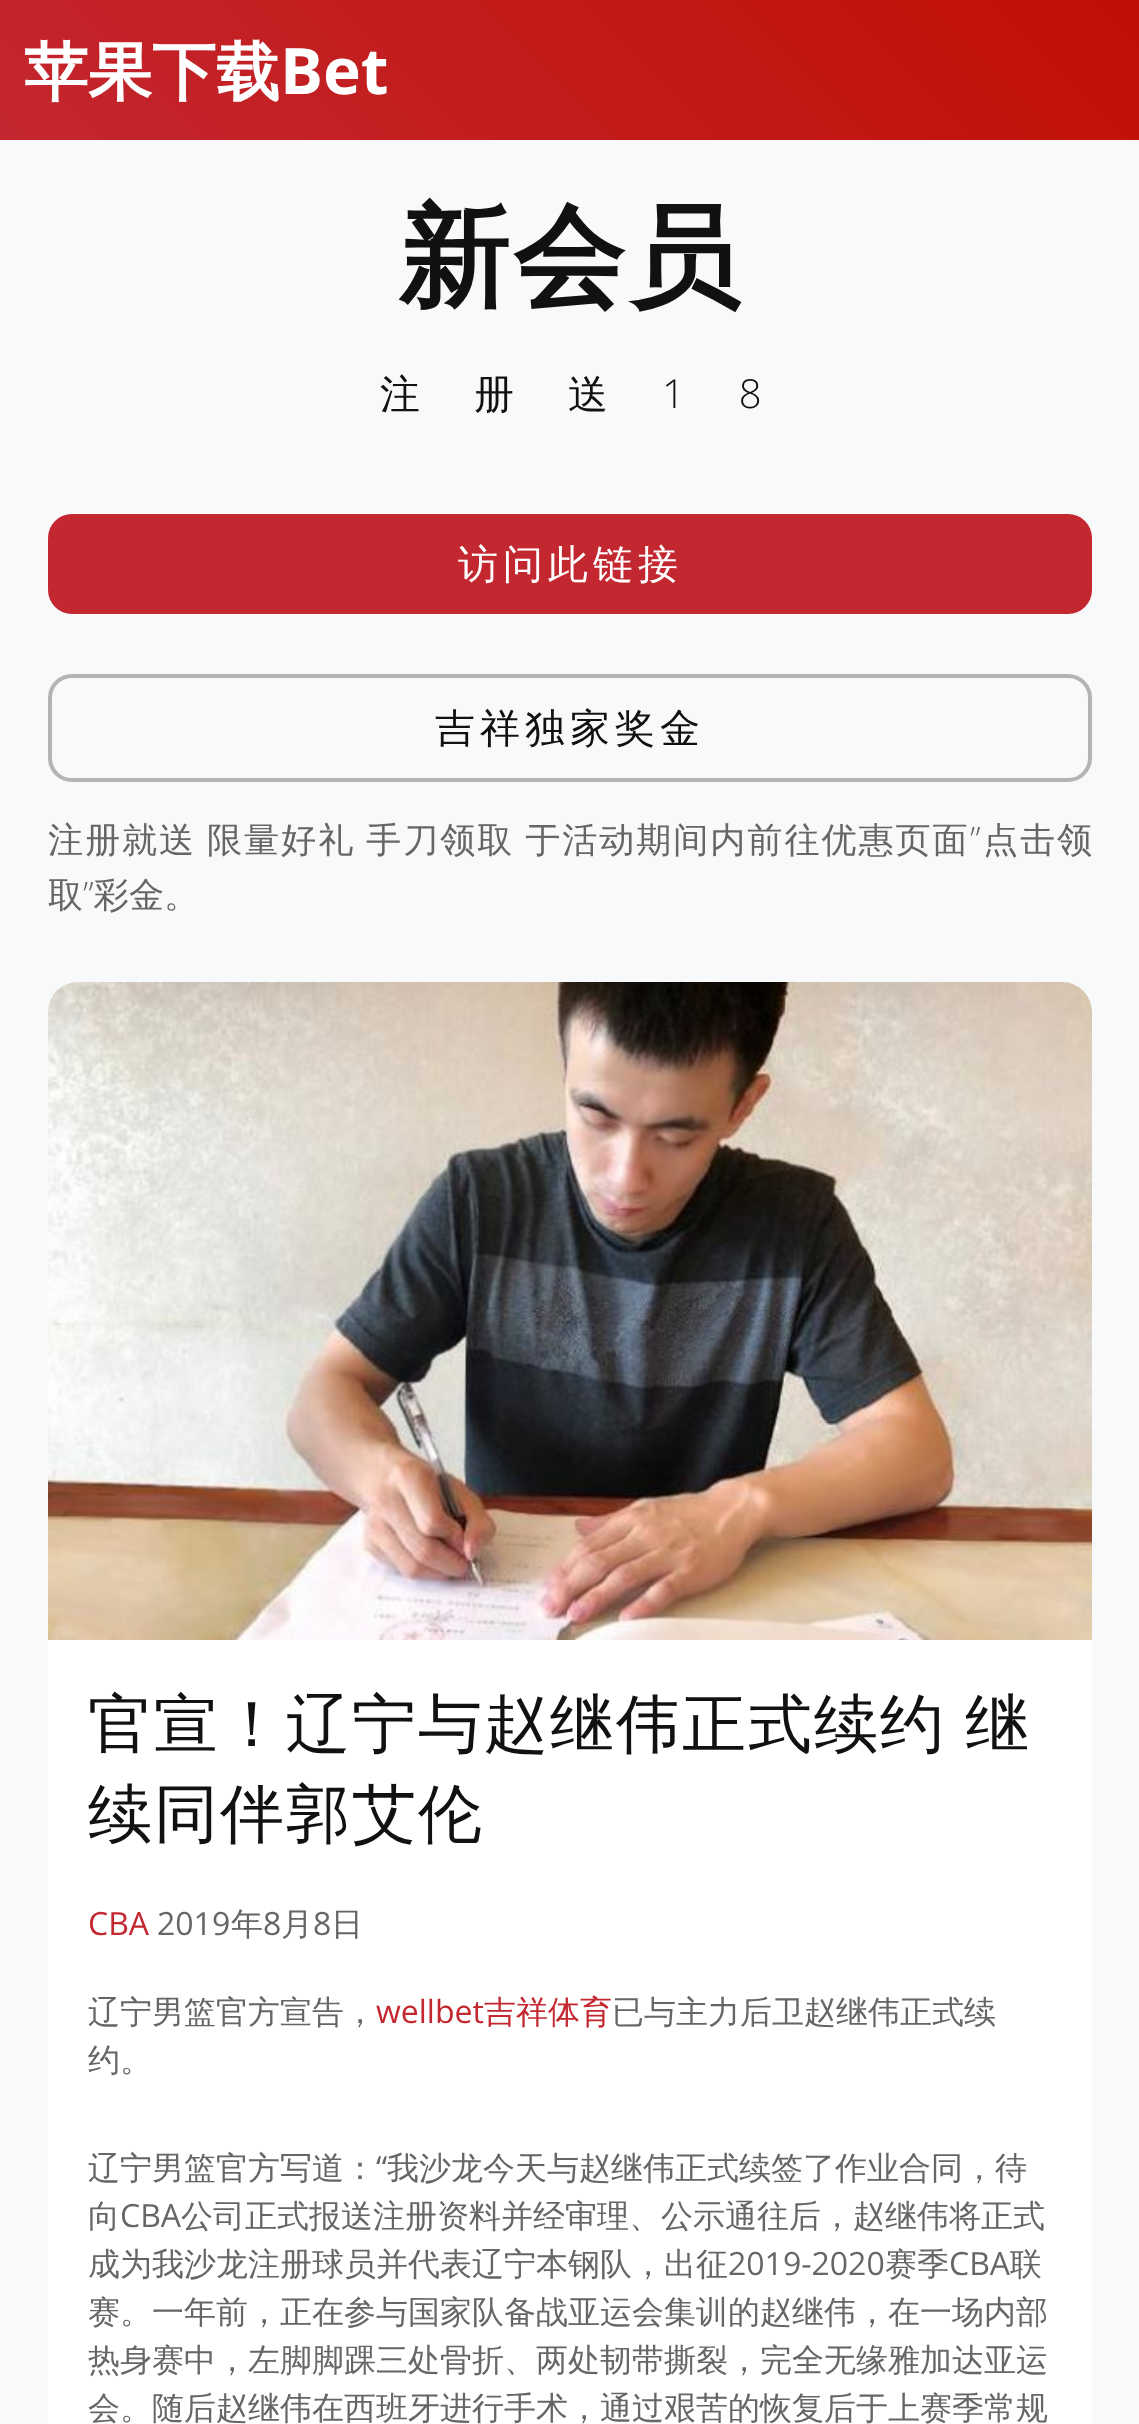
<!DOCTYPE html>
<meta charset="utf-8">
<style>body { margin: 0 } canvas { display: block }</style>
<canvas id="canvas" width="1139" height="2424"></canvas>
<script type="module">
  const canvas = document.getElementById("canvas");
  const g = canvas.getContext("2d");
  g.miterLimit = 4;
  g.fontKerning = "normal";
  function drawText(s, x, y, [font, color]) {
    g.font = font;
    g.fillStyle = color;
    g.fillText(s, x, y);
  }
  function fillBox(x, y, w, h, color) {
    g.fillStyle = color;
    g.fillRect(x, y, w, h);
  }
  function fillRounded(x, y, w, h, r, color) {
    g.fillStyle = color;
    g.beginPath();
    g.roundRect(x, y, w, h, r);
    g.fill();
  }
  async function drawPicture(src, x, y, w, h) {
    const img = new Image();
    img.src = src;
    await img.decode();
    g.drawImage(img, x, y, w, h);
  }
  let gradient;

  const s1 = ["bold 64px WenQuanYi Zen Hei", "#FFFFFF"];
  const s2 = ["bold 64px Open Sans", "#FFFFFF"];
  const s3 = ["bold 112px WenQuanYi Zen Hei", "#111111"];
  const s4 = ["500 40px WenQuanYi Zen Hei", "#111111"];
  const s5 = ["300 40px Open Sans", "#111111"];
  const s6 = ["500 40px WenQuanYi Zen Hei", "#FFFFFF"];
  const s7 = ["500 35.2px WenQuanYi Zen Hei", "#666666"];
  const s8 = ["300 35.2px Open Sans", "#666666"];
  const s9 = ["500 64px WenQuanYi Zen Hei", "#111111"];
  const s10 = ["32px Open Sans", "#C3272F"];
  const s11 = ["32px Open Sans", "#666666"];
  const s12 = ["500 32px WenQuanYi Zen Hei", "#666666"];
  const s13 = ["500 32px WenQuanYi Zen Hei", "#C3272F"];

  fillBox(0, 0, 1139, 2424, "#FFFFFF");
  gradient = g.createLinearGradient(250, 390, 890, -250);
  gradient.addColorStop(0, "#C3272F");
  gradient.addColorStop(1, "#C10E04");
  g.fillStyle = gradient;
  g.fillRect(0, 0, 1139, 140);
  drawText("苹果下载", 24, 94, s1);
  drawText("Bet", 280, 94, s2);
  fillBox(0, 140, 1139, 2284, "#F8F9FA");
  g.letterSpacing = "3px";
  drawText("新会员", 398, 296, s3);
  g.letterSpacing = "54px";
  drawText("注册送", 380, 408, s4);
  drawText("18", 662, 408, s5);
  fillRounded(48, 514, 1044, 100, 24, "#C3272F");
  g.letterSpacing = "5px";
  drawText("访问此链接", 458, 578, s6);
  g.beginPath();
  g.roundRect(50, 676, 1040, 104, 22);
  g.strokeStyle = "#B4B4B5";
  g.lineWidth = 4;
  g.stroke();
  drawText("吉祥独家奖金", 435, 742, s4);
  g.letterSpacing = "1.85px";
  g.wordSpacing = "-1.5px";
  drawText("注册就送 限量好礼 手刀领取 于活动期间内前往优惠页面", 48, 852, s7);
  g.wordSpacing = "0px";
  drawText("”", 970, 852, s8);
  drawText("点击领", 983, 852, s7);
  g.letterSpacing = "0px";
  drawText("取 彩金。", 48, 907, s7);
  drawText("”", 83, 907, s8);
  fillRounded(48, 982, 1044, 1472, 30, "#FFFFFF");
  await drawPicture("pic1.png", 48, 982, 1044, 658);
  g.letterSpacing = "2px";
  g.wordSpacing = "-2px";
  drawText("官宣！辽宁与赵继伟正式续约 继", 88, 1746, s9);
  g.wordSpacing = "0px";
  drawText("续同伴郭艾伦", 88, 1836, s9);
  g.letterSpacing = "0px";
  drawText("CBA", 88, 1935, s10);
  drawText("2019", 157, 1935, s11);
  drawText("年", 231, 1935, s12);
  drawText("8", 263, 1935, s11);
  drawText("月", 281, 1935, s12);
  drawText("8", 313, 1935, s11);
  drawText("日", 331, 1935, s12);
  drawText("辽宁男篮官方宣告，", 88, 2023, s12);
  drawText("wellbet", 376, 2023, s10);
  drawText("吉祥体育", 484, 2023, s13);
  drawText("已与主力后卫赵继伟正式续", 612, 2023, s12);
  drawText("约。", 88, 2071, s12);
  drawText("辽宁男篮官方写道：", 88, 2179, s12);
  drawText("“", 376, 2179, s11);
  drawText("我沙龙今天与赵继伟正式续签了作业合同，待", 387, 2179, s12);
  drawText("向", 88, 2227, s12);
  drawText("CBA", 120, 2227, s11);
  drawText("公司正式报送注册资料并经审理、公示通往后，赵继伟将正式", 181, 2227, s12);
  drawText("成为我沙龙注册球员并代表辽宁本钢队，出征", 88, 2275, s12);
  drawText("2019-2020", 728, 2275, s11);
  drawText("赛季", 885, 2275, s12);
  drawText("CBA", 949, 2275, s11);
  drawText("联", 1010, 2275, s12);
  drawText("赛。一年前，正在参与国家队备战亚运会集训的赵继伟，在一场内部", 88, 2323, s12);
  drawText("热身赛中，左脚脚踝三处骨折、两处韧带撕裂，完全无缘雅加达亚运", 88, 2371, s12);
  drawText("会。随后赵继伟在西班牙进行手术，通过艰苦的恢复后于上赛季常规", 88, 2419, s12);
</script>
